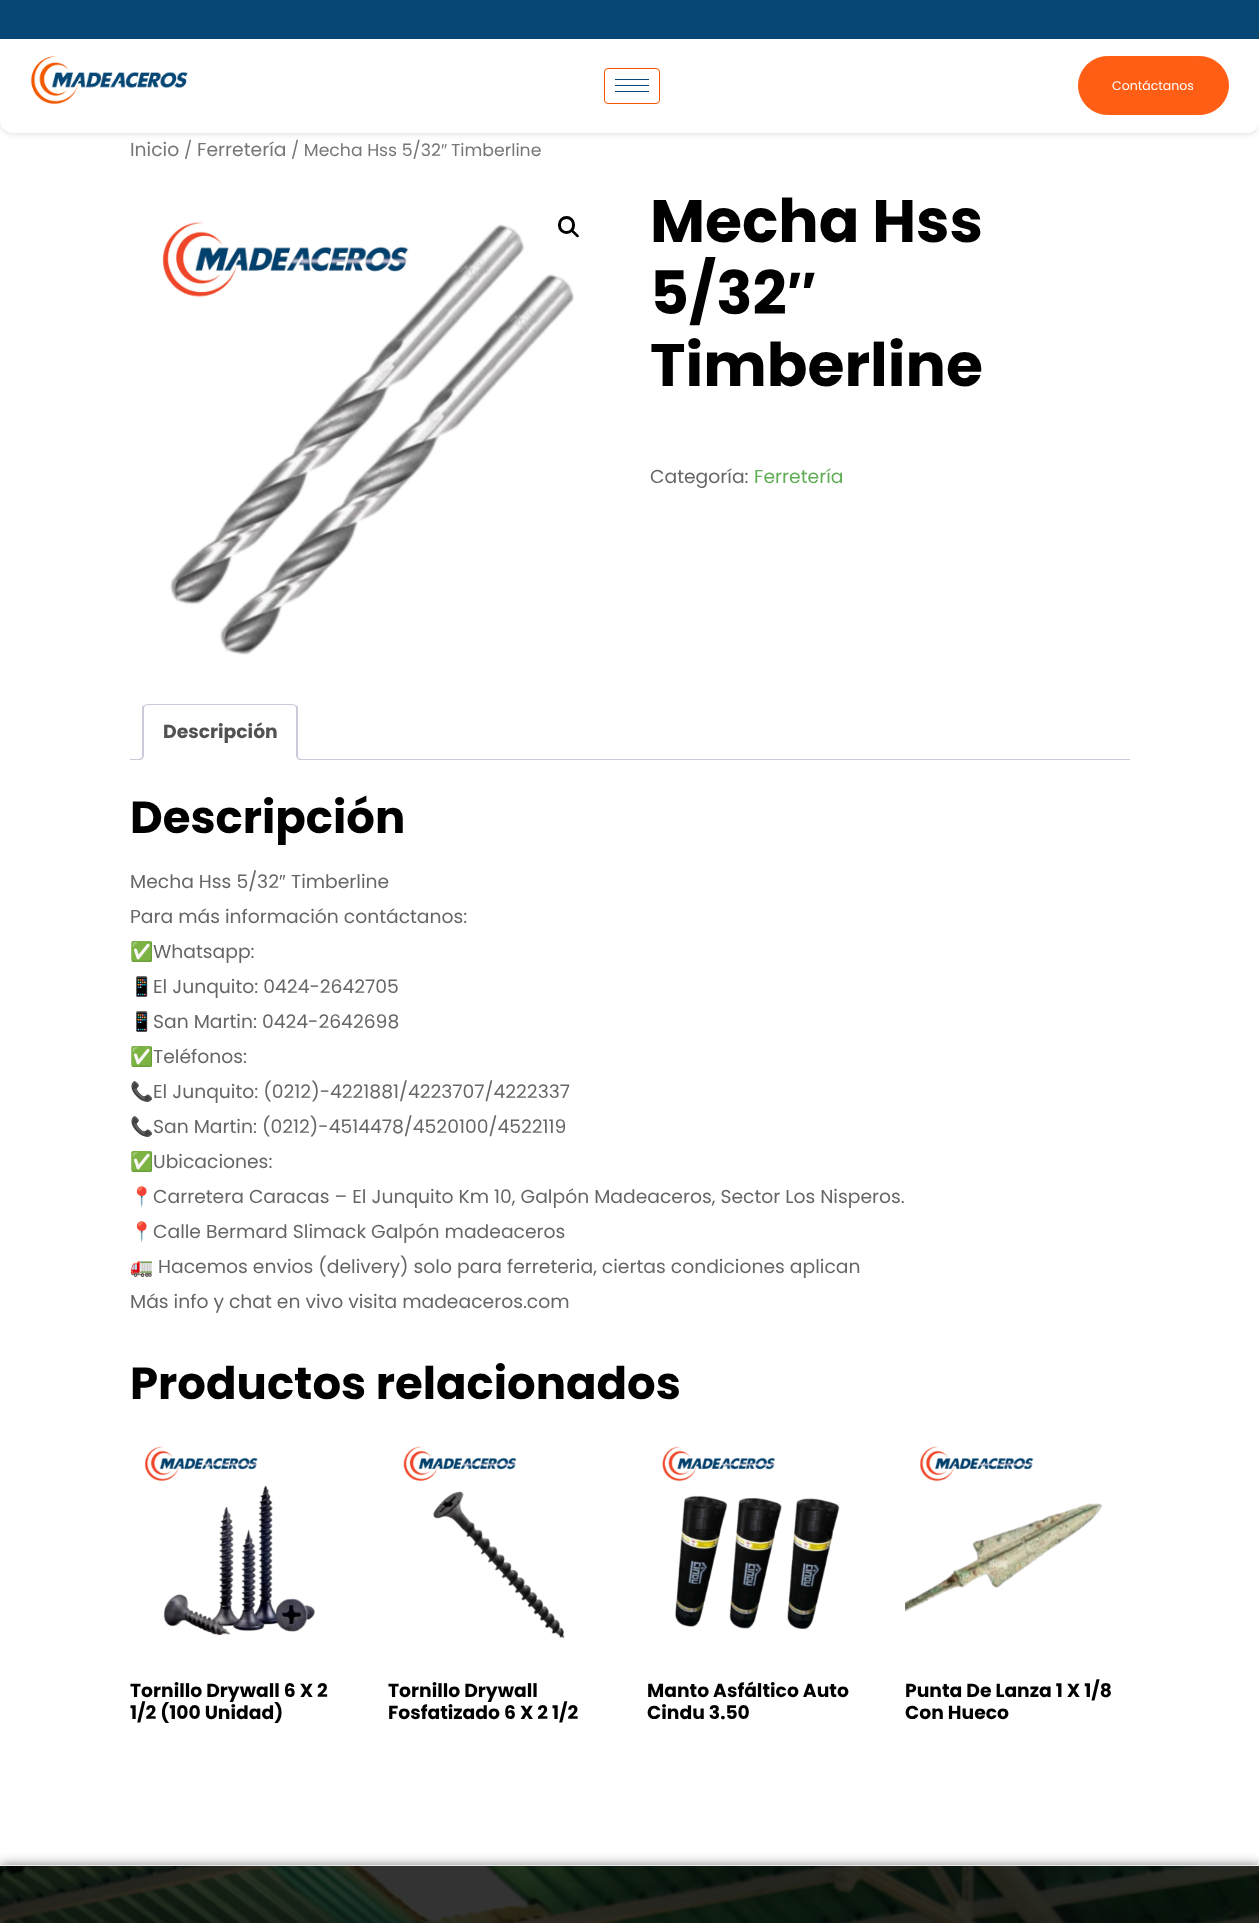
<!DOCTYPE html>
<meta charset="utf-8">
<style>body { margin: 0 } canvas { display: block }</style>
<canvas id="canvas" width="1259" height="1923"></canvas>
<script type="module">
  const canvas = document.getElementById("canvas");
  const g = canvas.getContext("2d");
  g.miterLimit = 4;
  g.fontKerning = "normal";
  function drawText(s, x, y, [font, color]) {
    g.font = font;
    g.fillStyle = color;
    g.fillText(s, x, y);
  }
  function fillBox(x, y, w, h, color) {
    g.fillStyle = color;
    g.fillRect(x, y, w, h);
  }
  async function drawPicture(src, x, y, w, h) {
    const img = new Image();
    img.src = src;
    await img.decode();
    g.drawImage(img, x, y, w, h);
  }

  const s1 = ["12.5px Poppins", "#FFFFFF"];
  const s2 = ["18.75px Poppins", "#767676"];
  const s3 = ["17.25px Poppins", "#767676"];
  const s4 = ["17.25px Liberation Sans", "#767676"];
  const s5 = ["bold 60px Poppins", "#000000"];
  const s6 = ["bold 60px Liberation Sans", "#000000"];
  const s7 = ["18.75px Poppins", "#666666"];
  const s8 = ["18.75px Poppins", "#60AD56"];
  const s9 = ["bold 18.75px Poppins", "#515151"];
  const s10 = ["bold 45px Poppins", "#000000"];
  const s11 = ["18.75px Liberation Sans", "#666666"];
  const s12 = ["18.75px Noto Color Emoji", "#666666"];
  const s13 = ["bold 18.75px Poppins", "#000000"];

  fillBox(0, 0, 1259, 1923, "#FFFFFF");
  fillBox(0, 0, 1259, 39, "#064775");
  g.fillStyle = "rgba(17, 22, 51, 0.1)";
  g.filter = "blur(2.5px)";
  g.beginPath();
  g.roundRect(0, 41, 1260, 94, 13);
  g.fill();
  g.filter = "none";
  g.fillStyle = "#FFFFFF";
  g.beginPath();
  g.moveTo(0, 39);
  g.lineTo(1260, 39);
  g.lineTo(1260, 120);
  g.bezierCurveTo(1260, 127, 1254, 133, 1247, 133);
  g.lineTo(13, 133);
  g.bezierCurveTo(6, 133, 0, 127, 0, 120);
  g.closePath();
  g.fill();
  await drawPicture("pic1.png", 31, 56, 157, 48);
  g.beginPath();
  g.roundRect(604.5, 68.5, 55, 35, 3.5);
  g.strokeStyle = "#F15900";
  g.stroke();
  fillBox(615, 79, 34, 1, "#064775");
  fillBox(615, 85, 34, 1, "#064775");
  fillBox(615, 91, 34, 1, "#064775");
  g.fillStyle = "#FF5E14";
  g.beginPath();
  g.roundRect(1078.5, 56.5, 150, 58, 29);
  g.fill();
  g.strokeStyle = "#FF5E14";
  g.stroke();
  drawText("Contáctanos", 1112, 90, s1);
  drawText("Inicio", 130, 156, s2);
  drawText("/", 184, 156, s3);
  drawText("Ferretería", 197, 156, s2);
  drawText("/ Mecha Hss 5/32", 291, 156, s3);
  drawText("″", 441, 156, s4);
  drawText("Timberline", 451, 156, s3);
  await drawPicture("pic2.png", 162, 221, 412, 434);
  g.beginPath();
  g.roundRect(559.5, 217.5, 14, 15, 7);
  g.strokeStyle = "#000000";
  g.lineWidth = 3;
  g.stroke();
  g.fillStyle = "#000000";
  g.beginPath();
  g.moveTo(571.5, 230);
  g.bezierCurveTo(573, 228.5, 575, 232, 576, 232.5);
  g.bezierCurveTo(576.5, 233.5, 580, 235.5, 578.5, 237);
  g.bezierCurveTo(577, 238.5, 575, 235, 574, 234.5);
  g.bezierCurveTo(573.5, 233.5, 570, 231.5, 571.5, 230);
  g.closePath();
  g.fill();
  drawText("Mecha Hss", 650, 242, s5);
  drawText("5/32", 650, 314, s5);
  drawText("″", 787, 314, s6);
  drawText("Timberline", 650, 386, s5);
  drawText("Categoría:", 650, 483, s7);
  drawText("Ferretería", 754, 483, s8);
  fillBox(130, 759, 1000, 1, "#CFC8D8");
  g.fillStyle = "#FFFFFF";
  g.beginPath();
  g.roundRect(143, 704, 155, 56, [5, 5, 0, 0]);
  g.fill();
  g.fillStyle = "#CFC8D8";
  g.beginPath();
  g.moveTo(148, 704);
  g.lineTo(144, 705);
  g.lineTo(145, 706);
  g.bezierCurveTo(146, 705, 147, 705, 148, 705);
  g.lineTo(292, 705);
  g.bezierCurveTo(293, 705, 294, 705, 295, 706);
  g.lineTo(296, 705);
  g.lineTo(292, 704);
  g.closePath();
  g.fill();
  g.beginPath();
  g.moveTo(296, 705);
  g.lineTo(298, 707);
  g.lineTo(298, 760);
  g.lineTo(296, 758);
  g.lineTo(296, 709);
  g.bezierCurveTo(296, 708, 296, 707, 295, 706);
  g.closePath();
  g.fill();
  g.fillStyle = "#FFFFFF";
  g.beginPath();
  g.moveTo(298, 760);
  g.lineTo(296, 758);
  g.lineTo(296, 759);
  g.lineTo(144, 759);
  g.lineTo(144, 758);
  g.lineTo(142, 760);
  g.closePath();
  g.fill();
  g.fillStyle = "#CFC8D8";
  g.beginPath();
  g.moveTo(142, 760);
  g.lineTo(144, 758);
  g.lineTo(144, 709);
  g.bezierCurveTo(144, 708, 144, 707, 145, 706);
  g.lineTo(144, 705);
  g.lineTo(142, 707);
  g.closePath();
  g.fill();
  drawText("Descripción", 163, 738, s9);
  g.save();
  g.beginPath();
  g.rect(130, 704, 1000, 56);
  g.clip();
  g.fillStyle = "#FFFFFF";
  g.beginPath();
  g.moveTo(140, 760);
  g.lineTo(140, 763);
  g.bezierCurveTo(145, 763, 146, 760.5, 146, 756);
  g.lineTo(143.5, 756);
  g.bezierCurveTo(143.5, 758, 142, 759.5, 140, 760);
  g.closePath();
  g.fill();
  g.restore();
  g.fillStyle = "#CFC8D8";
  g.beginPath();
  g.moveTo(137.5, 754);
  g.lineTo(144, 754);
  g.bezierCurveTo(144, 758, 142, 760, 137.5, 760);
  g.closePath();
  g.moveTo(137.5, 754);
  g.lineTo(142.5, 754);
  g.bezierCurveTo(142.5, 757.5, 141, 759, 137.5, 759);
  g.closePath();
  g.fill("evenodd");
  g.save();
  g.beginPath();
  g.rect(130, 704, 1000, 56);
  g.clip();
  g.fillStyle = "#FFFFFF";
  g.beginPath();
  g.moveTo(294, 756);
  g.bezierCurveTo(294, 760.5, 295, 763, 300, 763);
  g.lineTo(300, 760);
  g.bezierCurveTo(298, 759.5, 296.5, 758, 296.5, 756);
  g.closePath();
  g.fill();
  g.restore();
  g.beginPath();
  g.moveTo(296, 754);
  g.lineTo(302.5, 754);
  g.lineTo(302.5, 760);
  g.bezierCurveTo(299.5, 760, 296, 758.5, 296, 755);
  g.closePath();
  g.moveTo(297.5, 754);
  g.lineTo(302.5, 754);
  g.lineTo(302.5, 759);
  g.bezierCurveTo(300, 759, 297.5, 758, 297.5, 755);
  g.closePath();
  g.fill("evenodd");
  drawText("Descripción", 130, 833, s10);
  drawText("Mecha Hss 5/32", 130, 888, s7);
  drawText("″", 279, 888, s11);
  drawText("Timberline", 291, 888, s7);
  drawText("Para más información contáctanos:", 130, 923, s7);
  drawText("✅", 130, 958, s12);
  drawText("Whatsapp:", 153, 958, s7);
  drawText("📱", 130, 993, s12);
  drawText("El Junquito: 0424-2642705", 153, 993, s7);
  drawText("📱", 130, 1028, s12);
  drawText("San Martin: 0424-2642698", 153, 1028, s7);
  drawText("✅", 130, 1063, s12);
  drawText("Teléfonos:", 153, 1063, s7);
  drawText("📞", 130, 1098, s12);
  drawText("El Junquito: (0212)-4221881/4223707/4222337", 153, 1098, s7);
  drawText("📞", 130, 1133, s12);
  drawText("San Martin: (0212)-4514478/4520100/4522119", 153, 1133, s7);
  drawText("✅", 130, 1168, s12);
  drawText("Ubicaciones:", 153, 1168, s7);
  drawText("📍", 130, 1203, s12);
  drawText("Carretera Caracas – El Junquito Km 10, Galpón Madeaceros, Sector Los Nisperos.", 153, 1203, s7);
  drawText("📍", 130, 1238, s12);
  drawText("Calle Bermard Slimack Galpón madeaceros", 153, 1238, s7);
  drawText("🚛", 130, 1273, s12);
  drawText("Hacemos envios (delivery) solo para ferreteria, ciertas condiciones aplican", 158, 1273, s7);
  drawText("Más info y chat en vivo visita madeaceros.com", 130, 1308, s7);
  drawText("Productos relacionados", 130, 1399, s10);
  await drawPicture("pic3.png", 144, 1446, 171, 190);
  drawText("Tornillo Drywall 6 X 2", 130, 1697, s13);
  drawText("1/2 (100 Unidad)", 130, 1719, s13);
  await drawPicture("pic4.png", 403, 1446, 162, 192);
  drawText("Tornillo Drywall", 388, 1697, s13);
  drawText("Fosfatizado 6 X 2 1/2", 388, 1719, s13);
  await drawPicture("pic5.png", 662, 1446, 178, 184);
  drawText("Manto Asfáltico Auto", 647, 1697, s13);
  drawText("Cindu 3.50", 647, 1719, s13);
  await drawPicture("pic6.png", 905, 1446, 198, 166);
  drawText("Punta De Lanza 1 X 1/8", 905, 1697, s13);
  drawText("Con Hueco", 905, 1719, s13);
  g.fillStyle = "rgba(0, 0, 0, 0.5)";
  g.filter = "blur(6px)";
  g.beginPath();
  g.rect(0, 1865, 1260, 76);
  g.fill();
  g.filter = "none";
  fillBox(0, 1866, 1259, 57, "#000000");
  fillBox(0, 1865, 1259, 1, "#EBEBEB");
  await drawPicture("pic7.png", 0, 1866, 1259, 57);
</script>
